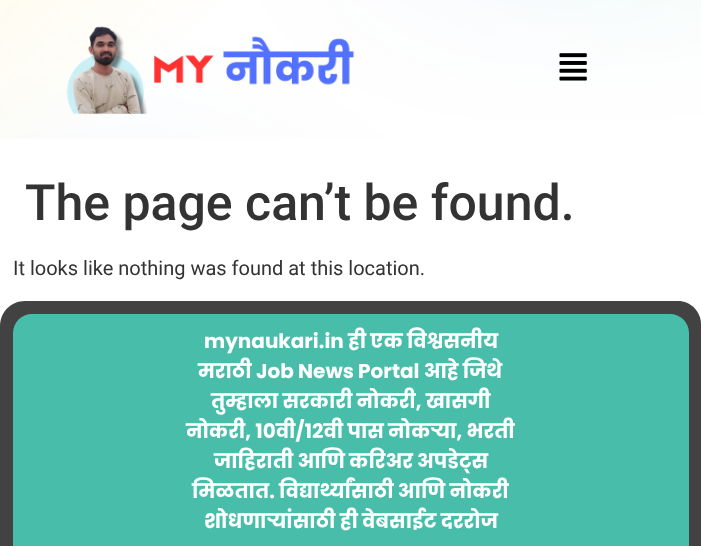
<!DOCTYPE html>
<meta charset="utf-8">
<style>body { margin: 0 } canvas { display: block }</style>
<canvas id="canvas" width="701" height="546"></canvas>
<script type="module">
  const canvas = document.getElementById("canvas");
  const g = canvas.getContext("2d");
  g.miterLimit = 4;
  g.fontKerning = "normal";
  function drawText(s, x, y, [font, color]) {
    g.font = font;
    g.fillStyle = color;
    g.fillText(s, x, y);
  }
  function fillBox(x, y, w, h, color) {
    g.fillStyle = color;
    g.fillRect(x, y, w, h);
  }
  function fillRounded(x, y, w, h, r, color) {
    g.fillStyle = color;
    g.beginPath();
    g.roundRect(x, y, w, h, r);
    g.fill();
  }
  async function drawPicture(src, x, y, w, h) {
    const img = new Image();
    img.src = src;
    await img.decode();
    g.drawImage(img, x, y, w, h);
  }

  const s1 = ["500 50px Roboto", "#333333"];
  const s2 = ["20px Roboto", "#333333"];
  const s3 = ["bold 20px Poppins", "#FFFFFF"];

  fillBox(0, 0, 701, 546, "#FFFFFF");
  await drawPicture("pic1.png", 0, 0, 701, 139);
  await drawPicture("pic2.png", 66, 26, 289, 88);
  await drawPicture("pic3.png", 559, 53, 28, 28);
  drawText("The page can’t be found.", 25, 220, s1);
  drawText("It looks like nothing was found at this location.", 13, 275, s2);
  g.fillStyle = "#424242";
  g.beginPath();
  g.moveTo(25, 301);
  g.lineTo(678, 301);
  g.bezierCurveTo(690.5, 301, 701, 311.5, 701, 324);
  g.lineTo(701, 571);
  g.lineTo(0, 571);
  g.lineTo(0, 326);
  g.bezierCurveTo(0, 312, 11, 301, 25, 301);
  g.closePath();
  g.fill();
  fillRounded(13, 314, 676, 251, 19, "#48BEAA");
  drawText("mynaukari.in ही एक विश्वसनीय", 204, 348, s3);
  drawText("मराठी Job News Portal आहे जिथे", 198, 378, s3);
  drawText("तुम्हाला सरकारी नोकरी, खासगी", 211, 408, s3);
  drawText("नोकरी, 10वी/12वी पास नोकऱ्या, भरती", 186, 438, s3);
  drawText("जाहिराती आणि करिअर अपडेट्स", 214, 468, s3);
  drawText("मिळतात. विद्यार्थ्यांसाठी आणि नोकरी", 192, 498, s3);
  drawText("शोधणाऱ्यांसाठी ही वेबसाईट दररोज", 204, 528, s3);
</script>
